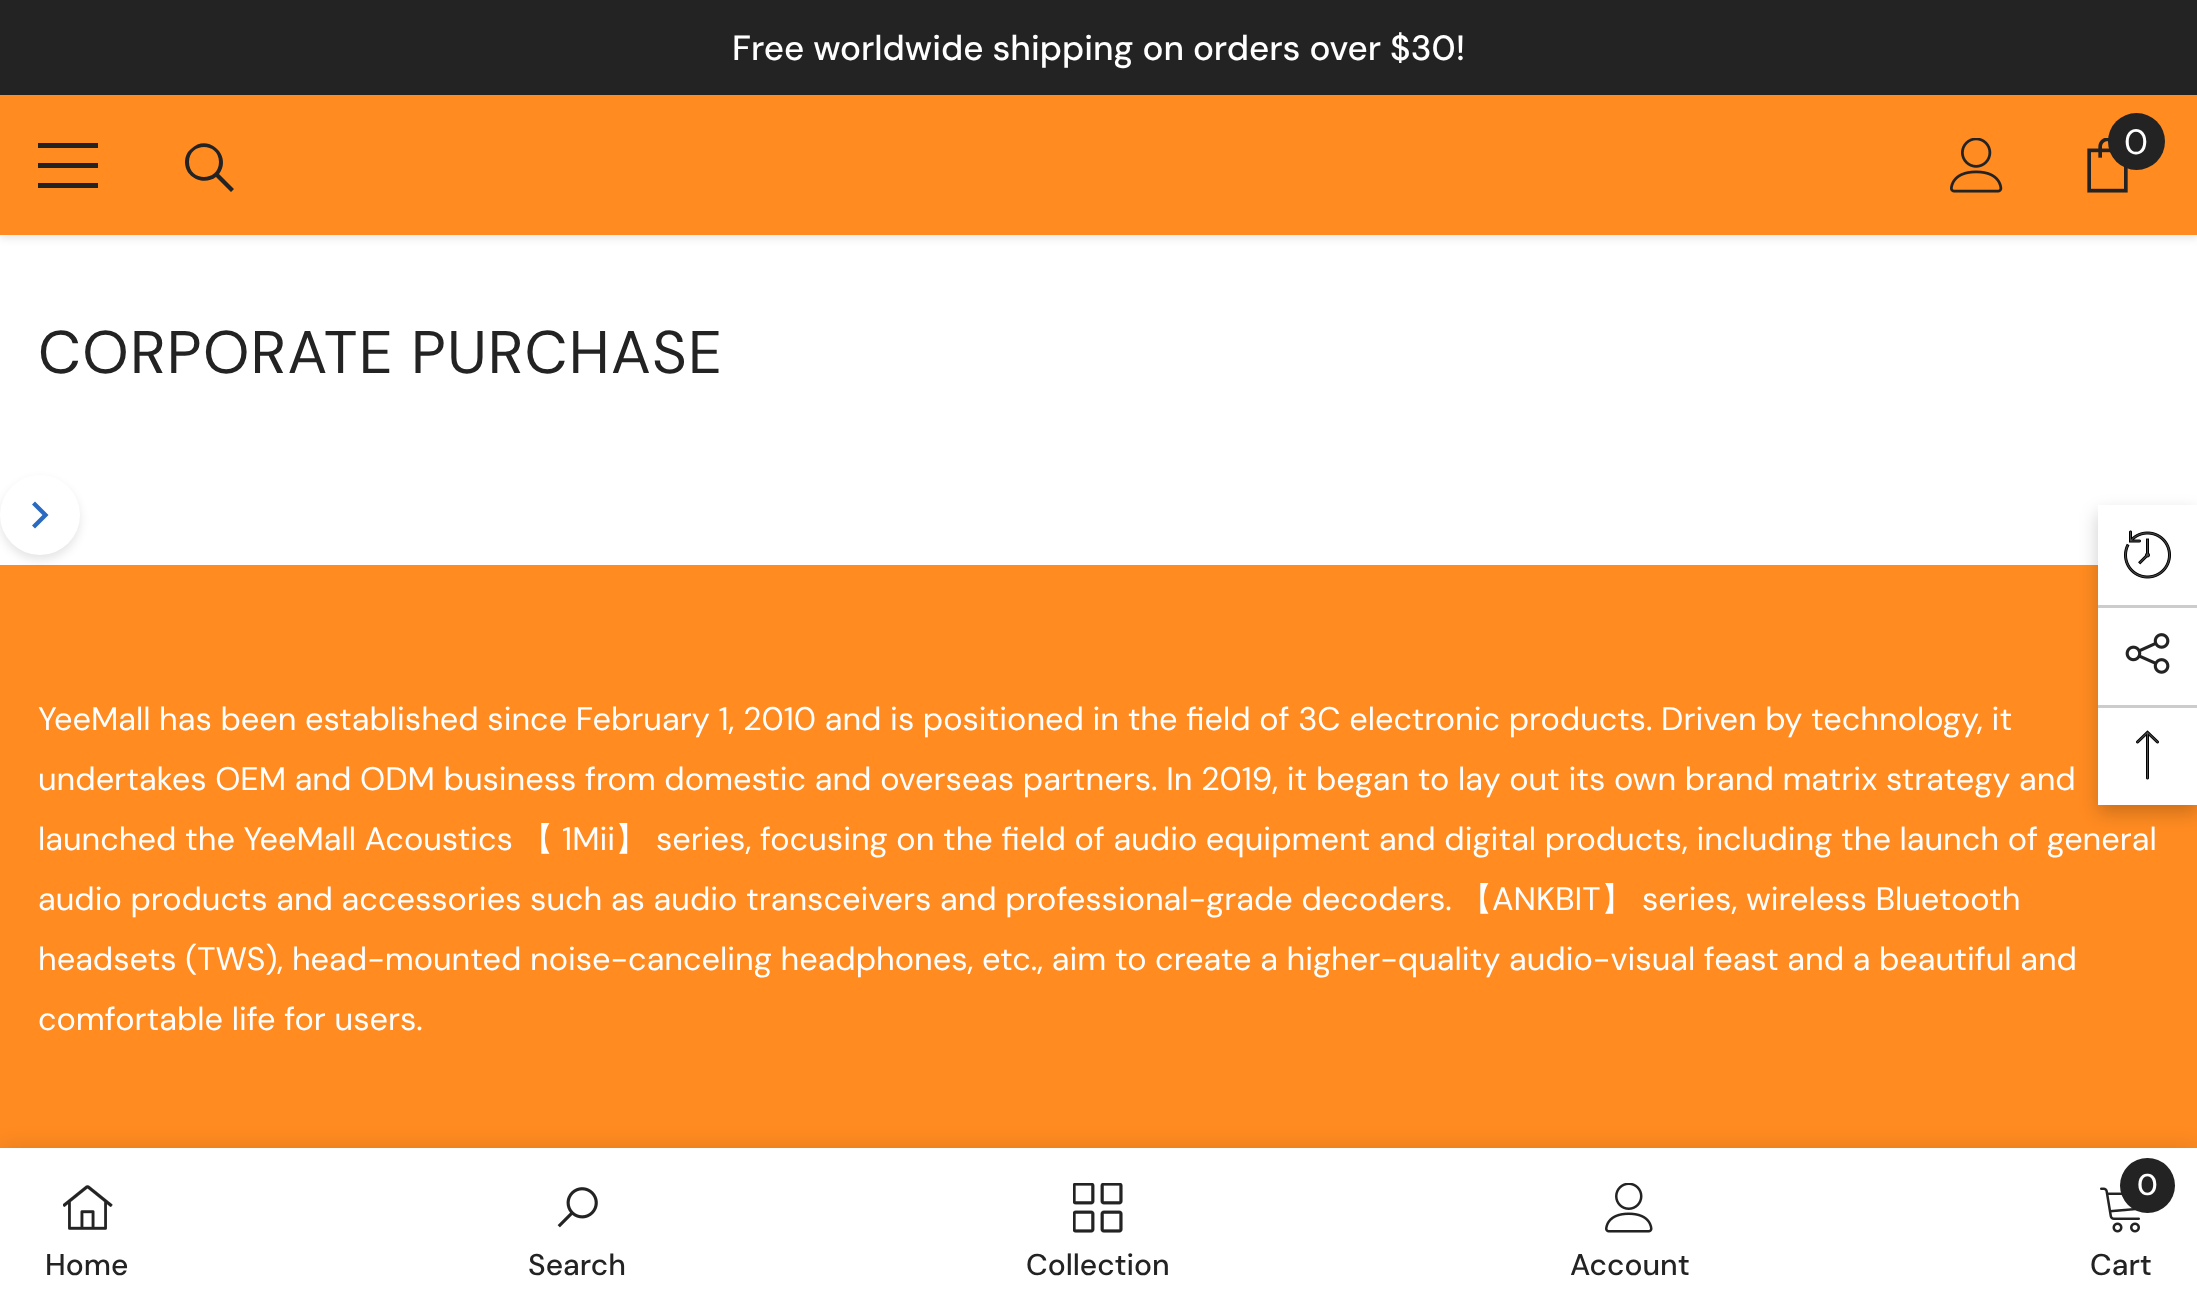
<!DOCTYPE html>
<meta charset="utf-8">
<style>body { margin: 0 } canvas { display: block }</style>
<canvas id="canvas" width="2197" height="1307"></canvas>
<script type="module">
  const canvas = document.getElementById("canvas");
  const g = canvas.getContext("2d");
  g.miterLimit = 4;
  g.fontKerning = "normal";
  function drawText(s, x, y, [font, color]) {
    g.font = font;
    g.fillStyle = color;
    g.fillText(s, x, y);
  }
  function fillBox(x, y, w, h, color) {
    g.fillStyle = color;
    g.fillRect(x, y, w, h);
  }
  async function drawPicture(src, x, y, w, h) {
    const img = new Image();
    img.src = src;
    await img.decode();
    g.drawImage(img, x, y, w, h);
  }

  const s1 = ["500 35px DM Sans", "#FFFFFF"];
  const s2 = ["35px DM Sans", "#FFFFFF"];
  const s3 = ["60px DM Sans", "#232323"];
  const s4 = ["32.5px DM Sans", "#FFFFFF"];
  const s5 = ["500 32.5px WenQuanYi Zen Hei", "#FFFFFF"];
  const s6 = ["500 30px DM Sans", "#232323"];
  const s7 = ["500 30px DM Sans", "#FFFFFF"];

  fillBox(0, 0, 2197, 1307, "#FFFFFF");
  fillBox(0, 0, 2197, 95, "#232323");
  drawText("Free worldwide shipping on orders over $30!", 732, 60, s1);
  g.fillStyle = "rgba(0, 0, 0, 0.1)";
  g.filter = "blur(4px)";
  g.beginPath();
  g.rect(0, 98, 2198, 140);
  g.fill();
  g.filter = "none";
  fillBox(0, 95, 2197, 140, "#FF8B21");
  fillBox(38, 163, 60, 5, "#232323");
  fillBox(38, 143, 60, 5, "#232323");
  fillBox(38, 183, 60, 5, "#232323");
  g.beginPath();
  g.moveTo(185, 162);
  g.bezierCurveTo(185, 178, 204, 186, 216, 177);
  g.lineTo(231, 192);
  g.lineTo(234, 189);
  g.lineTo(219, 174);
  g.bezierCurveTo(233, 156, 208, 132, 191, 149);
  g.bezierCurveTo(187, 152, 185, 157, 185, 162);
  g.closePath();
  g.moveTo(189, 162);
  g.bezierCurveTo(189, 142, 219, 142, 219, 162);
  g.bezierCurveTo(219, 182, 189, 182, 189, 162);
  g.closePath();
  g.fill();
  await drawPicture("pic1.png", 1950, 138, 53, 55);
  await drawPicture("pic2.png", 2087, 138, 41, 55);
  g.beginPath();
  g.arc(2136.5, 141.5, 28.5, 0, Math.PI * 2);
  g.fill();
  drawText("0", 2124, 154, s2);
  g.letterSpacing = "1.25px";
  drawText("CORPORATE PURCHASE", 38, 373, s3);
  fillBox(0, 565, 2197, 583, "#FF8B21");
  g.letterSpacing = "0px";
  drawText("YeeMall has been established since February 1, 2010 and is positioned in the field of 3C electronic products. Driven by technology, it", 38, 730, s4);
  drawText("undertakes OEM and ODM business from domestic and overseas partners. In 2019, it began to lay out its own brand matrix strategy and", 38, 790, s4);
  drawText("launched the YeeMall Acoustics", 38, 850, s4);
  drawText("【", 521, 850, s5);
  drawText("1Mii", 562, 850, s4);
  drawText("】", 615, 850, s5);
  drawText("series, focusing on the field of audio equipment and digital products, including the launch of general", 656, 850, s4);
  drawText("audio products and accessories such as audio transceivers and professional-grade decoders.", 38, 910, s4);
  drawText("【", 1460, 910, s5);
  drawText("ANKBIT", 1492, 910, s4);
  drawText("】", 1601, 910, s5);
  drawText("series, wireless Bluetooth", 1642, 910, s4);
  drawText("headsets (TWS), head-mounted noise-canceling headphones, etc., aim to create a higher-quality audio-visual feast and a beautiful and", 38, 970, s4);
  drawText("comfortable life for users.", 38, 1030, s4);
  g.fillStyle = "rgba(0, 0, 0, 0.12)";
  g.filter = "blur(11px)";
  g.beginPath();
  g.rect(0, 1148, 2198, 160);
  g.fill();
  g.filter = "none";
  fillBox(0, 1148, 2197, 159, "#FFFFFF");
  await drawPicture("pic3.png", 63, 1185, 50, 45);
  drawText("Home", 45, 1275, s6);
  await drawPicture("pic4.png", 557, 1187, 41, 41);
  drawText("Search", 528, 1275, s6);
  await drawPicture("pic5.png", 1073, 1183, 50, 50);
  drawText("Collection", 1026, 1275, s6);
  await drawPicture("pic6.png", 1605, 1183, 48, 50);
  drawText("Account", 1570, 1275, s6);
  await drawPicture("pic7.png", 2100, 1187, 40, 46);
  g.beginPath();
  g.arc(2147.5, 1185.5, 27.5, 0, Math.PI * 2);
  g.fill();
  drawText("0", 2137, 1195, s7);
  drawText("Cart", 2090, 1275, s6);
  g.fillStyle = "rgba(0, 0, 0, 0.1)";
  g.filter = "blur(5px)";
  g.beginPath();
  g.roundRect(0, 480, 80, 80, 40);
  g.fill();
  g.filter = "none";
  g.fillStyle = "#FFFFFF";
  g.beginPath();
  g.arc(40, 515, 40, 0, Math.PI * 2);
  g.fill();
  g.fillStyle = "#2A6AC1";
  g.beginPath();
  g.moveTo(42.5, 515);
  g.lineTo(32, 504.5);
  g.lineTo(35, 501.5);
  g.lineTo(48.5, 515);
  g.lineTo(35, 528.5);
  g.lineTo(32, 525.5);
  g.closePath();
  g.fill();
  g.fillStyle = "rgba(0, 0, 0, 0.2)";
  g.filter = "blur(9px)";
  g.beginPath();
  g.rect(2098, 513, 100, 300);
  g.fill();
  g.filter = "none";
  fillBox(2098, 505, 99, 300, "#FFFFFF");
  await drawPicture("pic8.png", 2124, 530, 47, 49);
  fillBox(2098, 605, 99, 3, "#CCCCCC");
  await drawPicture("pic9.png", 2125, 633, 45, 41);
  fillBox(2098, 705, 99, 3, "#CCCCCC");
  await drawPicture("pic10.png", 2136, 730, 23, 50);
</script>
